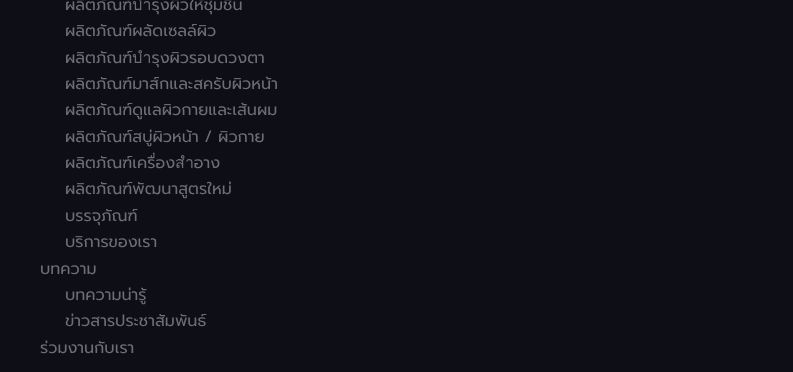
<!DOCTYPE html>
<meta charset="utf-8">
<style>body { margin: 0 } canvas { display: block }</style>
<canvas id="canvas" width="793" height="372"></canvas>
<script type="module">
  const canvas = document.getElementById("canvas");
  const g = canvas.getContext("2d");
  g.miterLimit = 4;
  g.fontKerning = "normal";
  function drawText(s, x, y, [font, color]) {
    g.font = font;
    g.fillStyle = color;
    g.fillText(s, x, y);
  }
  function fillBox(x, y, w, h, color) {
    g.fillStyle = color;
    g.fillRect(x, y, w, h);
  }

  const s1 = ["16px Prompt", "#6E6E75"];

  fillBox(0, 0, 793, 372, "#0D0E16");
  drawText("ผลิตภัณฑ์บำรุงผิวให้ชุ่มชื่น", 65, 10, s1);
  drawText("ผลิตภัณฑ์ผลัดเซลล์ผิว", 65, 36, s1);
  drawText("ผลิตภัณฑ์บำรุงผิวรอบดวงตา", 65, 63, s1);
  drawText("ผลิตภัณฑ์มาส์กและสครับผิวหน้า", 65, 89, s1);
  drawText("ผลิตภัณฑ์ดูแลผิวกายและเส้นผม", 65, 115, s1);
  drawText("ผลิตภัณฑ์สบู่ผิวหน้า / ผิวกาย", 65, 142, s1);
  drawText("ผลิตภัณฑ์เครื่องสำอาง", 65, 168, s1);
  drawText("ผลิตภัณฑ์พัฒนาสูตรใหม่", 65, 194, s1);
  drawText("บรรจุภัณฑ์", 65, 221, s1);
  drawText("บริการของเรา", 65, 247, s1);
  drawText("บทความ", 40, 274, s1);
  drawText("บทความน่ารู้", 65, 300, s1);
  drawText("ข่าวสารประชาสัมพันธ์", 65, 326, s1);
  drawText("ร่วมงานกับเรา", 40, 353, s1);
</script>
